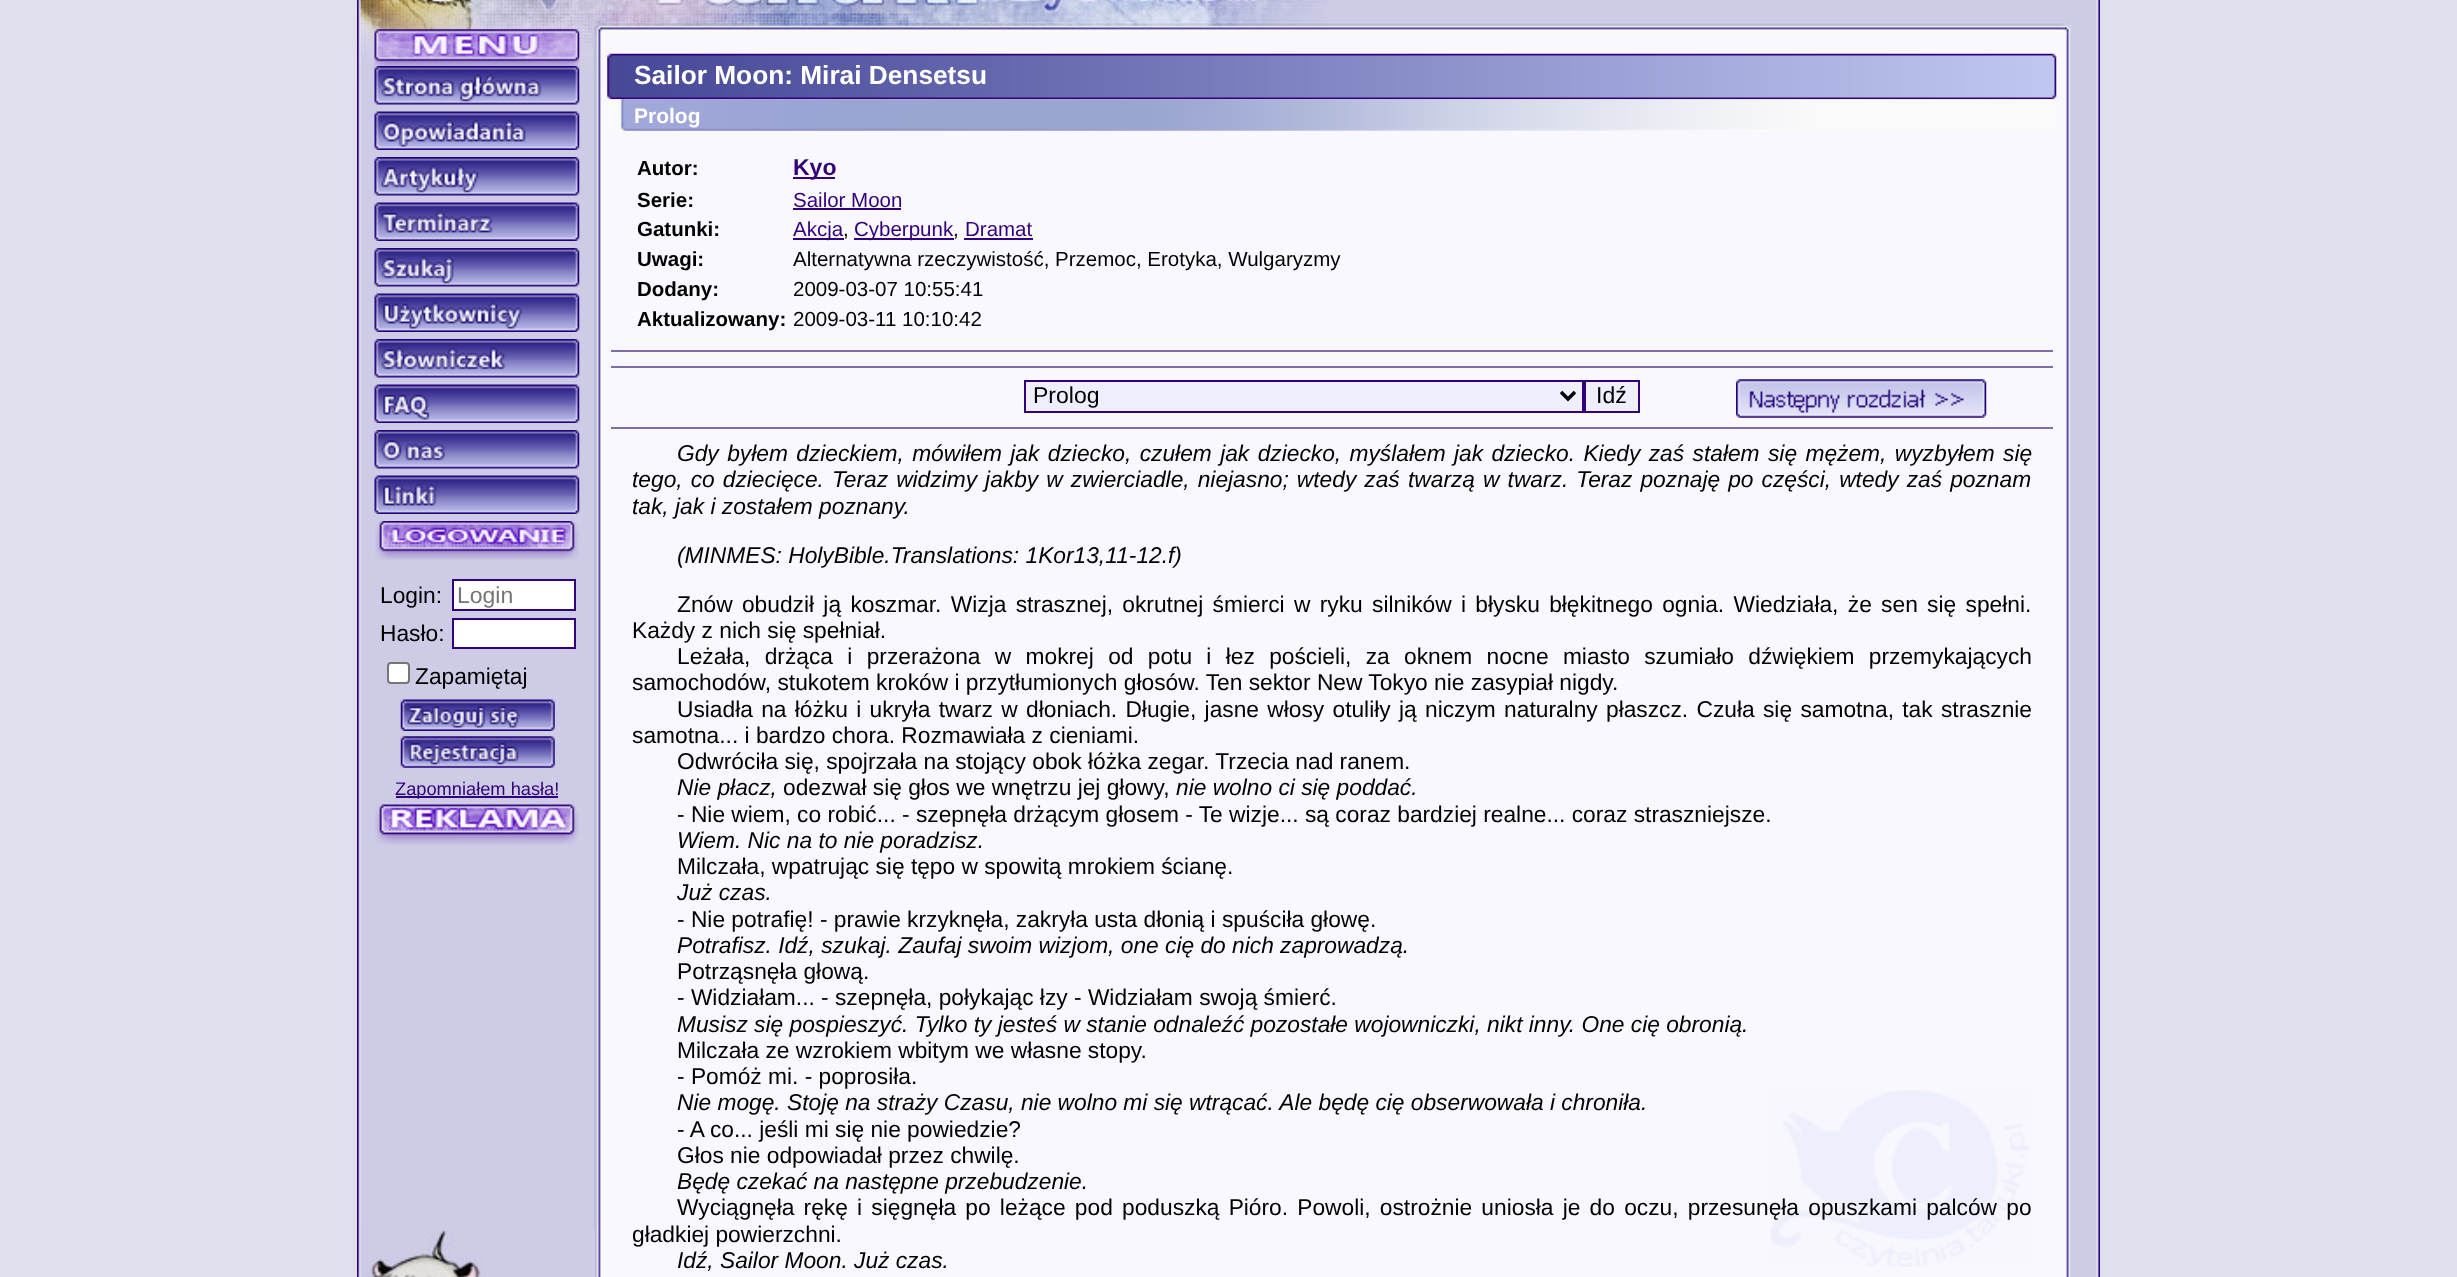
<!DOCTYPE html>
<meta charset="utf-8">
<style>body { margin: 0 } canvas { display: block }</style>
<canvas id="canvas" width="2457" height="1277"></canvas>
<script type="module">
  const canvas = document.getElementById("canvas");
  const g = canvas.getContext("2d");
  g.miterLimit = 4;
  g.fontKerning = "normal";
  function drawText(s, x, y, [font, color]) {
    g.font = font;
    g.fillStyle = color;
    g.fillText(s, x, y);
  }
  function fillBox(x, y, w, h, color) {
    g.fillStyle = color;
    g.fillRect(x, y, w, h);
  }
  async function drawPicture(src, x, y, w, h) {
    const img = new Image();
    img.src = src;
    await img.decode();
    g.drawImage(img, x, y, w, h);
  }

  const s1 = ["22.75px Liberation Sans", "#000000"];
  const s2 = ["23px Liberation Sans", "#757575"];
  const s3 = ["18.25px Liberation Sans", "#33027B"];
  const s4 = ["bold 26.25px Liberation Sans", "#FFFFFF"];
  const s5 = ["bold 21px Liberation Sans", "#FFFFFF"];
  const s6 = ["bold 20.5px Liberation Sans", "#000000"];
  const s7 = ["bold 23px Liberation Sans", "#33027B"];
  const s8 = ["20.5px Liberation Sans", "#33027B"];
  const s9 = ["20.5px Liberation Sans", "#000000"];
  const s10 = ["23px Liberation Sans", "#000000"];
  const s11 = ["italic 22.75px Liberation Sans", "#000000"];

  fillBox(0, 0, 2457, 1277, "#E0DFED");
  await drawPicture("pic1.png", 357, 0, 1743, 1277);
  await drawPicture("pic2.png", 357, 0, 970, 83);
  await drawPicture("pic3.png", 374, 29, 206, 37);
  await drawPicture("pic4.png", 374, 66, 206, 39);
  await drawPicture("pic5.png", 374, 111, 206, 39);
  await drawPicture("pic6.png", 374, 157, 206, 39);
  await drawPicture("pic7.png", 374, 202, 206, 39);
  await drawPicture("pic8.png", 374, 248, 206, 39);
  await drawPicture("pic9.png", 374, 293, 206, 39);
  await drawPicture("pic10.png", 374, 339, 206, 39);
  await drawPicture("pic11.png", 374, 384, 206, 39);
  await drawPicture("pic12.png", 374, 430, 206, 39);
  await drawPicture("pic13.png", 374, 475, 206, 39);
  await drawPicture("pic14.png", 375, 521, 204, 39);
  drawText("Login:", 380, 603, s1);
  g.fillStyle = "#FFFFFF";
  g.beginPath();
  g.rect(453, 580, 122, 30);
  g.fill();
  g.strokeStyle = "#33027B";
  g.lineWidth = 2;
  g.stroke();
  drawText("Login", 457, 603, s2);
  drawText("Hasło:", 380, 641, s1);
  g.fillStyle = "#FFFFFF";
  g.beginPath();
  g.rect(453, 619, 122, 29);
  g.fill();
  g.stroke();
  g.beginPath();
  g.roundRect(388, 663, 21, 20, 3);
  g.fill();
  g.strokeStyle = "#767676";
  g.stroke();
  drawText("Zapamiętaj", 415, 684, s1);
  await drawPicture("pic15.png", 400, 699, 155, 32);
  await drawPicture("pic16.png", 400, 736, 155, 32);
  fillBox(396, 796, 162, 2, "#33027B");
  drawText("Zapomniałem hasła!", 395, 795, s3);
  await drawPicture("pic17.png", 374, 804, 205, 41);
  await drawPicture("pic18.png", 593, 22, 1478, 1255);
  await drawPicture("pic19.png", 593, 22, 1478, 13);
  await drawPicture("pic20.png", 607, 53, 1450, 47);
  drawText("Sailor Moon: Mirai Densetsu", 634, 84, s4);
  await drawPicture("pic21.png", 608, 99, 1447, 32);
  drawText("Prolog", 634, 123, s5);
  drawText("Autor:", 637, 175, s6);
  fillBox(793, 177, 42, 2, "#33027B");
  drawText("Kyo", 793, 175, s7);
  drawText("Serie:", 637, 207, s6);
  drawText("Sailor Moon", 793, 207, s8);
  fillBox(793, 208, 108, 2, "#33027B");
  drawText("Gatunki:", 637, 236, s6);
  fillBox(793, 238, 51, 2, "#33027B");
  drawText("Akcja", 793, 236, s8);
  drawText(",", 843, 236, s9);
  fillBox(854, 238, 100, 2, "#33027B");
  drawText("Cyberpunk", 854, 236, s8);
  drawText(",", 953, 236, s9);
  drawText("Dramat", 965, 236, s8);
  fillBox(964, 238, 69, 2, "#33027B");
  drawText("Uwagi:", 637, 266, s6);
  drawText("Alternatywna rzeczywistość, Przemoc, Erotyka, Wulgaryzmy", 793, 266, s9);
  drawText("Dodany:", 637, 296, s6);
  drawText("2009-03-07 10:55:41", 793, 296, s9);
  drawText("Aktualizowany:", 637, 326, s6);
  drawText("2009-03-11 10:10:42", 793, 326, s9);
  fillBox(611, 350, 1442, 2, "#7C6DA5");
  fillBox(611, 366, 1442, 2, "#7C6DA5");
  g.fillStyle = "#EEEEFC";
  g.beginPath();
  g.rect(1025, 381, 558, 31);
  g.fill();
  g.strokeStyle = "#33027B";
  g.stroke();
  g.beginPath();
  g.moveTo(1561, 392);
  g.lineTo(1568, 399);
  g.lineTo(1575, 392);
  g.strokeStyle = "#000000";
  g.lineWidth = 3.5;
  g.stroke();
  drawText("Prolog", 1033, 403, s10);
  g.fillStyle = "#EEEEFC";
  g.beginPath();
  g.rect(1585, 381, 54, 31);
  g.fill();
  g.strokeStyle = "#33027B";
  g.lineWidth = 2;
  g.stroke();
  drawText("Idź", 1596, 403, s10);
  await drawPicture("pic22.png", 1736, 379, 251, 39);
  fillBox(611, 427, 1442, 2, "#7C6DA5");
  await drawPicture("pic23.png", 1770, 1090, 260, 177);
  g.wordSpacing = "2.1px";
  drawText("Gdy byłem dzieckiem, mówiłem jak dziecko, czułem jak dziecko, myślałem jak dziecko. Kiedy zaś stałem się mężem, wyzbyłem się", 677, 461, s11);
  g.wordSpacing = "1.75px";
  drawText("tego, co dziecięce. Teraz widzimy jakby w zwierciadle, niejasno; wtedy zaś", 632, 487, s11);
  drawText("twarzą w twarz. Teraz poznaję po części, wtedy zaś poznam", 1408, 487, s11);
  g.wordSpacing = "0px";
  drawText("tak, jak i zostałem poznany.", 632, 514, s11);
  drawText("(MINMES: HolyBible.Translations: 1Kor13,11-12.f)", 677, 563, s11);
  g.wordSpacing = "3px";
  drawText("Znów obudził ją koszmar. Wizja strasznej, okrutnej śmierci w ryku silników i błysku błękitnego ognia. Wiedziała, że sen się spełni.", 677, 612, s1);
  g.wordSpacing = "0px";
  drawText("Każdy z nich się spełniał.", 632, 638, s1);
  g.wordSpacing = "8px";
  drawText("Leżała, drżąca i przerażona w mokrej od potu i łez pościeli, za oknem nocne miasto szumiało dźwiękiem przemykających", 677, 664, s1);
  g.wordSpacing = "0px";
  drawText("samochodów, stukotem kroków i przytłumionych głosów. Ten sektor New Tokyo nie zasypiał nigdy.", 632, 690, s1);
  g.wordSpacing = "2px";
  drawText("Usiadła na łóżku i ukryła twarz w dłoniach. Długie, jasne włosy otuliły ją niczym naturalny płaszcz. Czuła się samotna, tak strasznie", 677, 717, s1);
  g.wordSpacing = "0px";
  drawText("samotna... i bardzo chora. Rozmawiała z cieniami.", 632, 743, s1);
  drawText("Odwróciła się, spojrzała na stojący obok łóżka zegar. Trzecia nad ranem.", 677, 769, s1);
  drawText("Nie płacz,", 677, 795, s11);
  drawText("odezwał się głos we wnętrzu jej głowy,", 783, 795, s1);
  drawText("nie wolno ci się poddać.", 1176, 795, s11);
  drawText("- Nie wiem, co robić... - szepnęła drżącym głosem - Te wizje... są coraz bardziej realne... coraz straszniejsze.", 677, 822, s1);
  drawText("Wiem. Nic na to nie poradzisz.", 677, 848, s11);
  drawText("Milczała, wpatrując się tępo w spowitą mrokiem ścianę.", 677, 874, s1);
  drawText("Już czas.", 677, 900, s11);
  drawText("- Nie potrafię! - prawie krzyknęła, zakryła usta dłonią i spuściła głowę.", 677, 927, s1);
  drawText("Potrafisz. Idź, szukaj. Zaufaj swoim wizjom, one cię do nich zaprowadzą.", 677, 953, s11);
  drawText("Potrząsnęła głową.", 677, 979, s1);
  drawText("- Widziałam... - szepnęła, połykając łzy - Widziałam swoją śmierć.", 677, 1005, s1);
  drawText("Musisz się pospieszyć. Tylko ty jesteś w stanie odnaleźć pozostałe wojowniczki, nikt inny. One cię obronią.", 677, 1032, s11);
  drawText("Milczała ze wzrokiem wbitym we własne stopy.", 677, 1058, s1);
  drawText("- Pomóż mi. - poprosiła.", 677, 1084, s1);
  drawText("Nie mogę. Stoję na straży Czasu, nie wolno mi się wtrącać. Ale będę cię obserwowała i chroniła.", 677, 1110, s11);
  drawText("- A co... jeśli mi się nie powiedzie?", 677, 1137, s1);
  drawText("Głos nie odpowiadał przez chwilę.", 677, 1163, s1);
  drawText("Będę czekać na następne przebudzenie.", 677, 1189, s11);
  g.wordSpacing = "2.9px";
  drawText("Wyciągnęła rękę i sięgnęła po leżące pod poduszką Pióro. Powoli, ostrożnie uniosła je do oczu, przesunęła opuszkami palców po", 677, 1215, s1);
  g.wordSpacing = "0px";
  drawText("gładkiej powierzchni.", 632, 1242, s1);
  drawText("Idź, Sailor Moon. Już czas.", 677, 1268, s11);
  await drawPicture("pic24.png", 357, 1229, 238, 48);
</script>
